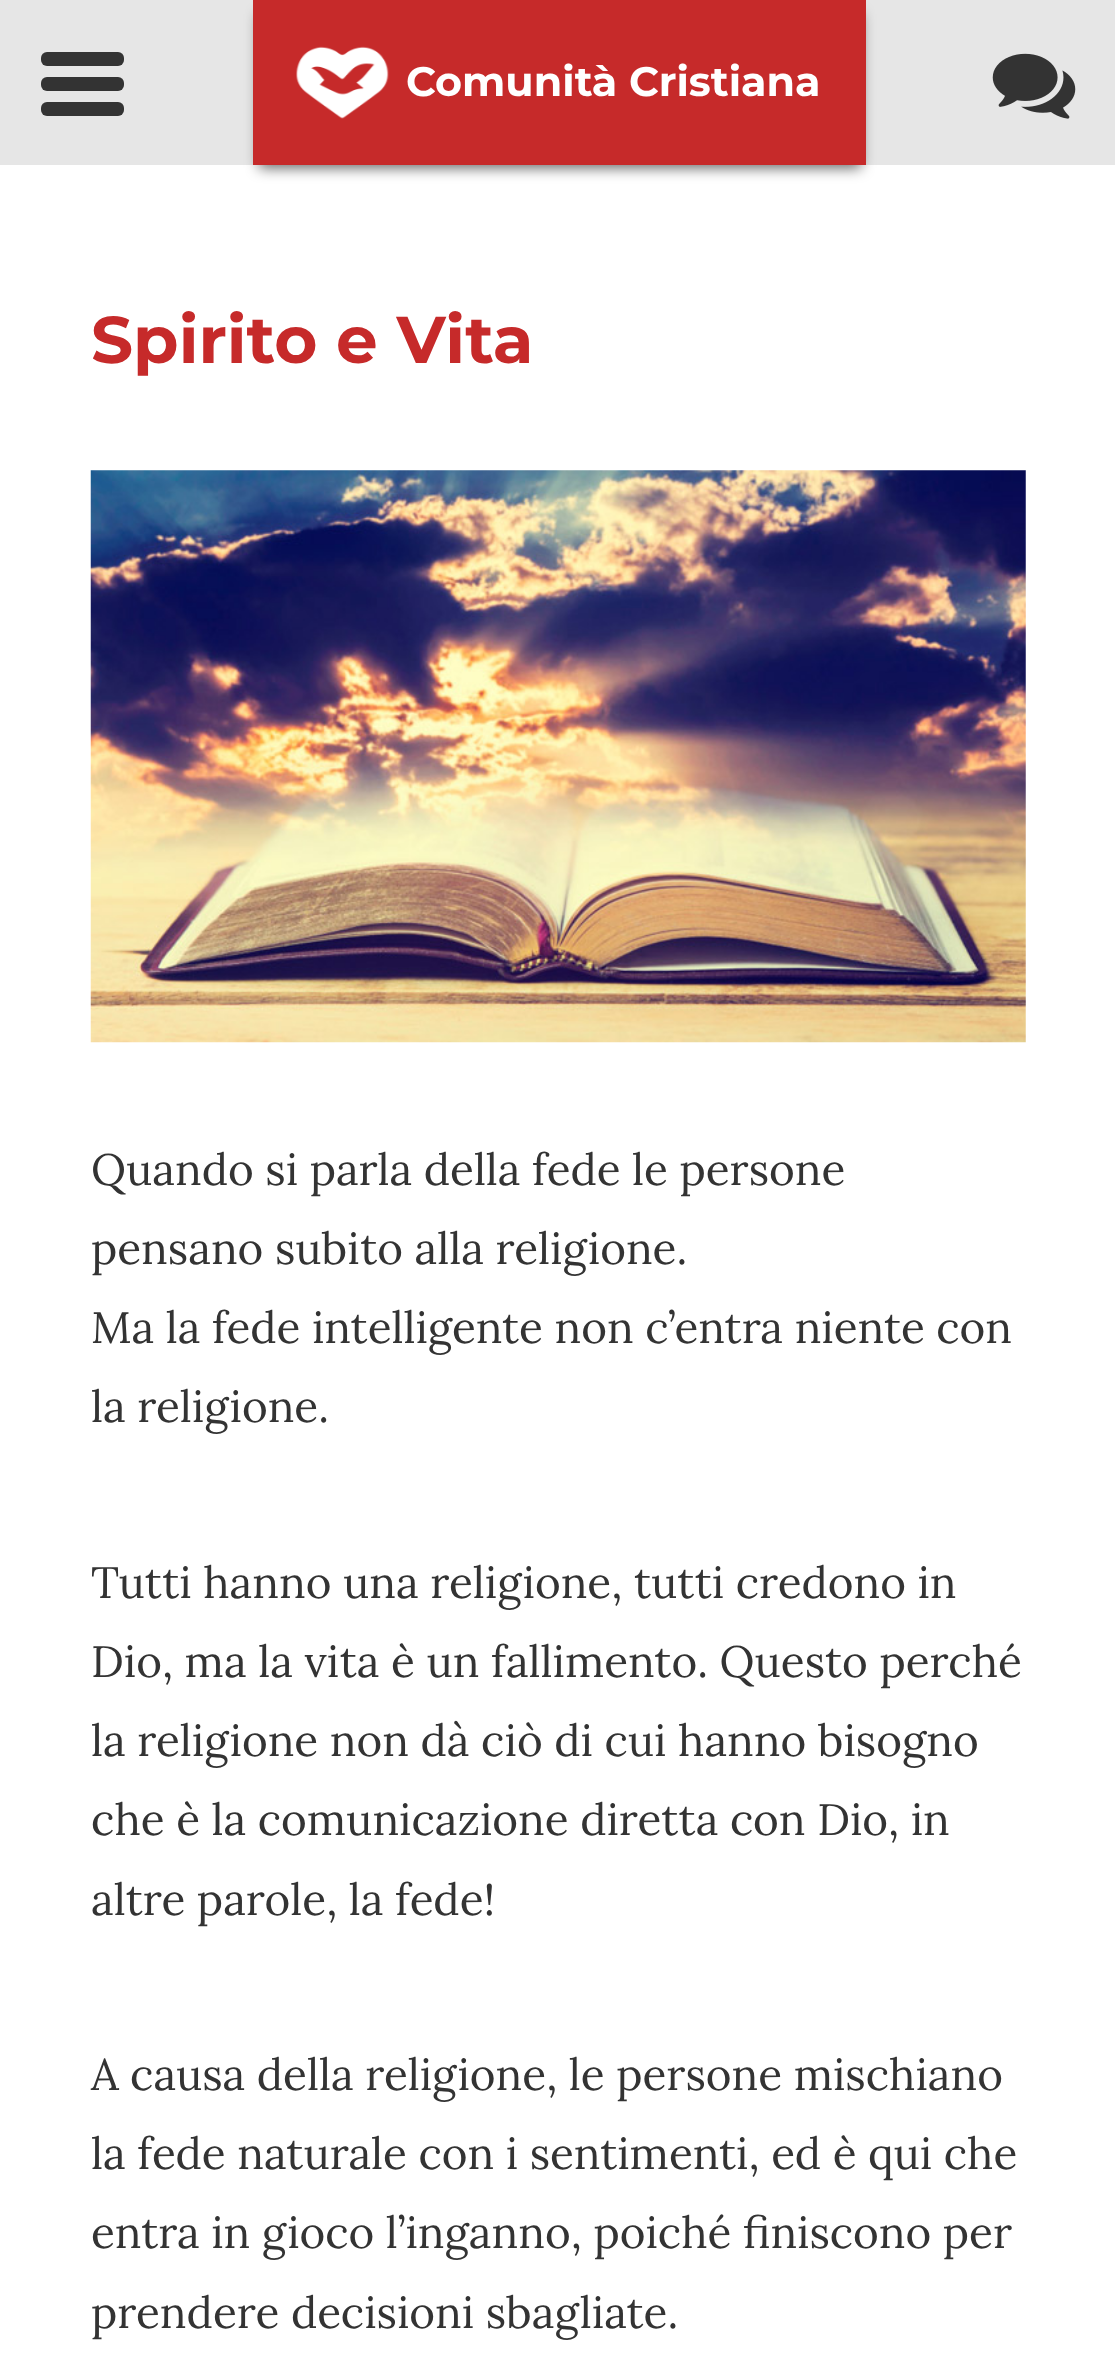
<!DOCTYPE html>
<meta charset="utf-8">
<style>body { margin: 0 } canvas { display: block }</style>
<canvas id="canvas" width="1115" height="2374"></canvas>
<script type="module">
  const canvas = document.getElementById("canvas");
  const g = canvas.getContext("2d");
  g.miterLimit = 4;
  g.fontKerning = "normal";
  function drawText(s, x, y, [font, color]) {
    g.font = font;
    g.fillStyle = color;
    g.fillText(s, x, y);
  }
  function fillBox(x, y, w, h, color) {
    g.fillStyle = color;
    g.fillRect(x, y, w, h);
  }
  function fillRounded(x, y, w, h, r, color) {
    g.fillStyle = color;
    g.beginPath();
    g.roundRect(x, y, w, h, r);
    g.fill();
  }
  async function drawPicture(src, x, y, w, h) {
    const img = new Image();
    img.src = src;
    await img.decode();
    g.drawImage(img, x, y, w, h);
  }

  const s1 = ["bold 41.25px Montserrat", "#FFFFFF"];
  const s2 = ["bold 66px Montserrat", "#C62A2A"];
  const s3 = ["44px Lora", "#333333"];

  fillBox(0, 0, 1115, 2374, "#FFFFFF");
  fillBox(0, 0, 1115, 165, "#E6E6E6");
  fillRounded(41, 77, 83, 14, 6, "#333333");
  fillRounded(41, 52, 83, 14, 6, "#333333");
  fillRounded(41, 102, 83, 14, 6, "#333333");
  g.fillStyle = "rgba(0, 0, 0, 0.6)";
  g.filter = "blur(7px)";
  g.beginPath();
  g.rect(259, 14, 602, 154);
  g.fill();
  g.filter = "none";
  fillBox(253, 0, 613, 165, "#C62A2A");
  await drawPicture("pic1.png", 296, 46, 93, 73);
  drawText("Comunità Cristiana", 406, 96, s1);
  await drawPicture("pic2.png", 992, 53, 84, 66);
  drawText("Spirito e Vita", 91, 363, s2);
  await drawPicture("pic3.png", 90, 470, 936, 573);
  drawText("Quando si parla della fede le persone", 91, 1185, s3);
  drawText("pensano subito alla religione.", 91, 1264, s3);
  drawText("Ma la fede intelligente non c’entra niente con", 91, 1343, s3);
  drawText("la religione.", 91, 1422, s3);
  drawText("Tutti hanno una religione, tutti credono in", 91, 1598, s3);
  drawText("Dio, ma la vita è un fallimento. Questo perché", 91, 1677, s3);
  drawText("la religione non dà ciò di cui hanno bisogno", 91, 1756, s3);
  drawText("che è la comunicazione diretta con Dio, in", 91, 1835, s3);
  drawText("altre parole, la fede!", 91, 1915, s3);
  drawText("A causa della religione, le persone mischiano", 91, 2090, s3);
  drawText("la fede naturale con i sentimenti, ed è qui che", 91, 2169, s3);
  drawText("entra in gioco l’inganno, poiché finiscono per", 91, 2248, s3);
  drawText("prendere decisioni sbagliate.", 91, 2328, s3);
</script>
